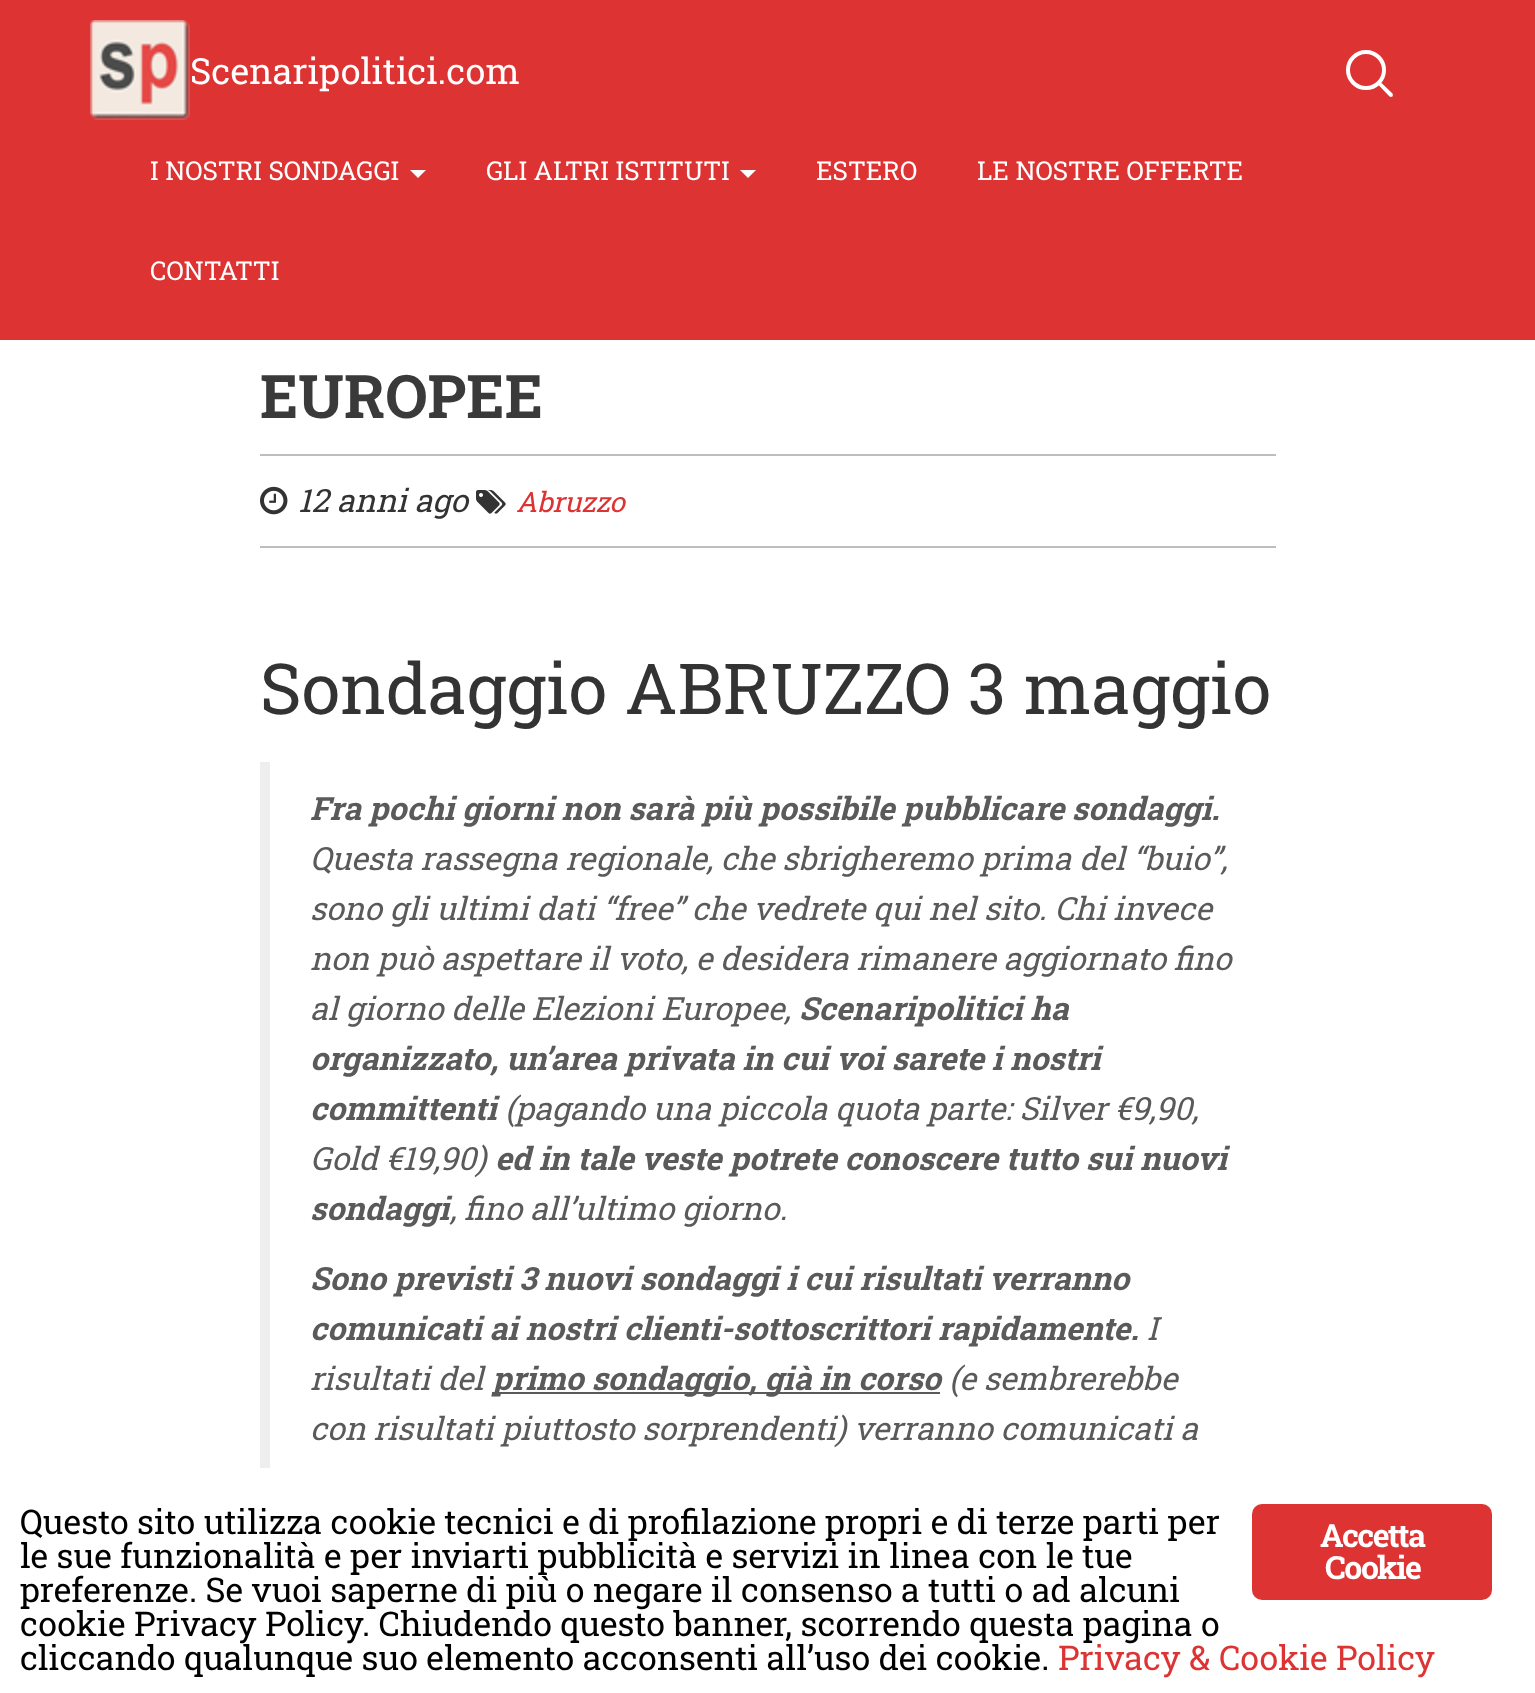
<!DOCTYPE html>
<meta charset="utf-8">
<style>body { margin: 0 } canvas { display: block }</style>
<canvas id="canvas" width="1535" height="1693"></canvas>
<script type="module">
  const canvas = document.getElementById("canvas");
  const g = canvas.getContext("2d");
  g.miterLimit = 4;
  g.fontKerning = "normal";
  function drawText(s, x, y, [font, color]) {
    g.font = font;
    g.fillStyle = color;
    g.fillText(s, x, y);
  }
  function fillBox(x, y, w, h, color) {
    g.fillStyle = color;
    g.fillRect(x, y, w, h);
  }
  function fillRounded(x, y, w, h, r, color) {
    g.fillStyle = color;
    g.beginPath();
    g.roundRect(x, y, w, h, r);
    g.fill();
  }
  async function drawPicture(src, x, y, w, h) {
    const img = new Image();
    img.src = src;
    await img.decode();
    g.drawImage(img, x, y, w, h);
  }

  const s1 = ["36px Roboto Slab", "#FFFFFF"];
  const s2 = ["26px Roboto Slab", "#FFFFFF"];
  const s3 = ["bold 60px Roboto Slab", "#3A3A3A"];
  const s4 = ["italic 32px Roboto Slab", "#333333"];
  const s5 = ["italic 28px Roboto Slab", "#DD3333"];
  const s6 = ["70.4px Roboto Slab", "#333333"];
  const s7 = ["italic bold 32px Roboto Slab", "#5A5A5A"];
  const s8 = ["italic 32px Roboto Slab", "#5A5A5A"];
  const s9 = ["34px Roboto Slab", "#000000"];
  const s10 = ["34px Roboto Slab", "#DD3333"];
  const s11 = ["bold 32px Roboto Slab", "#FFFFFF"];

  fillBox(0, 0, 1535, 1693, "#FFFFFF");
  fillBox(0, 0, 1535, 340, "#DD3333");
  await drawPicture("pic1.png", 90, 20, 100, 100);
  drawText("Scenaripolitici.com", 190, 84, s1);
  g.beginPath();
  g.arc(1366, 70, 18, 0, Math.PI * 2);
  g.strokeStyle = "#FFFFFF";
  g.lineWidth = 4;
  g.stroke();
  g.beginPath();
  g.moveTo(1381, 82.5);
  g.lineTo(1392.5, 93.5);
  g.bezierCurveTo(1393, 94.5, 1393, 95.5, 1392.5, 96.5);
  g.bezierCurveTo(1391.5, 97, 1390.5, 97, 1389.5, 96.5);
  g.lineTo(1378.5, 85);
  g.bezierCurveTo(1377.5, 84.5, 1377.5, 83, 1378.5, 82.5);
  g.bezierCurveTo(1379, 81.5, 1380.5, 81.5, 1381, 82.5);
  g.closePath();
  g.fill();
  drawText("I NOSTRI SONDAGGI", 150, 180, s2);
  g.beginPath();
  g.moveTo(410, 170);
  g.lineTo(426, 170);
  g.lineTo(418, 178);
  g.closePath();
  g.fill();
  drawText("GLI ALTRI ISTITUTI", 486, 180, s2);
  g.beginPath();
  g.moveTo(740, 170);
  g.lineTo(756, 170);
  g.lineTo(748, 178);
  g.closePath();
  g.fill();
  drawText("ESTERO", 816, 180, s2);
  drawText("LE NOSTRE OFFERTE", 977, 180, s2);
  drawText("CONTATTI", 150, 280, s2);
  drawText("EUROPEE", 260, 418, s3);
  fillBox(260, 454, 1016, 2, "#BEBEBE");
  fillBox(260, 546, 1016, 2, "#BEBEBE");
  await drawPicture("pic2.png", 260, 486, 28, 29);
  drawText("12 anni ago", 298, 512, s4);
  await drawPicture("pic3.png", 476, 490, 30, 24);
  drawText("Abruzzo", 516, 512, s5);
  drawText("Sondaggio ABRUZZO 3 maggio", 260, 714, s6);
  fillBox(260, 762, 10, 706, "#EEEEEE");
  drawText("Fra pochi giorni non sarà più possibile pubblicare sondaggi.", 310, 820, s7);
  drawText("Questa rassegna regionale, che sbrigheremo prima del “buio”,", 310, 870, s8);
  drawText("sono gli ultimi dati “free” che vedrete qui nel sito. Chi invece", 310, 920, s8);
  drawText("non può aspettare il voto, e desidera rimanere aggiornato fino", 310, 970, s8);
  drawText("al giorno delle Elezioni Europee,", 310, 1020, s8);
  drawText("Scenaripolitici ha", 799, 1020, s7);
  drawText("organizzato, un’area privata in cui voi sarete i nostri", 310, 1070, s7);
  drawText("committenti", 310, 1120, s7);
  drawText("(pagando una piccola quota parte: Silver €9,90,", 505, 1120, s8);
  drawText("Gold €19,90)", 310, 1170, s8);
  drawText("ed in tale veste potrete conoscere tutto sui nuovi", 495, 1170, s7);
  drawText("sondaggi", 310, 1220, s7);
  drawText(", fino all’ultimo giorno.", 450, 1220, s8);
  drawText("Sono previsti 3 nuovi sondaggi i cui risultati verranno", 310, 1290, s7);
  drawText("comunicati ai nostri clienti-sottoscrittori rapidamente.", 310, 1340, s7);
  drawText("I", 1147, 1340, s8);
  drawText("risultati del", 310, 1390, s8);
  fillBox(492, 1392, 448, 2, "#5A5A5A");
  drawText("primo sondaggio, già in corso", 492, 1390, s7);
  drawText("(e sembrerebbe", 949, 1390, s8);
  drawText("con risultati piuttosto sorprendenti) verranno comunicati a", 310, 1440, s8);
  drawText("Questo sito utilizza cookie tecnici e di profilazione propri e di terze parti per", 20, 1534, s9);
  drawText("le sue funzionalità e per inviarti pubblicità e servizi in linea con le tue", 20, 1568, s9);
  drawText("preferenze. Se vuoi saperne di più o negare il consenso a tutti o ad alcuni", 20, 1602, s9);
  drawText("cookie Privacy Policy. Chiudendo questo banner, scorrendo questa pagina o", 20, 1636, s9);
  drawText("cliccando qualunque suo elemento acconsenti all’uso dei cookie.", 20, 1670, s9);
  drawText("Privacy & Cookie Policy", 1058, 1670, s10);
  fillRounded(1252, 1504, 240, 96, 10, "#DD3333");
  g.letterSpacing = "-1.5px";
  drawText("Accetta", 1320, 1547, s11);
  drawText("Cookie", 1325, 1579, s11);
</script>
